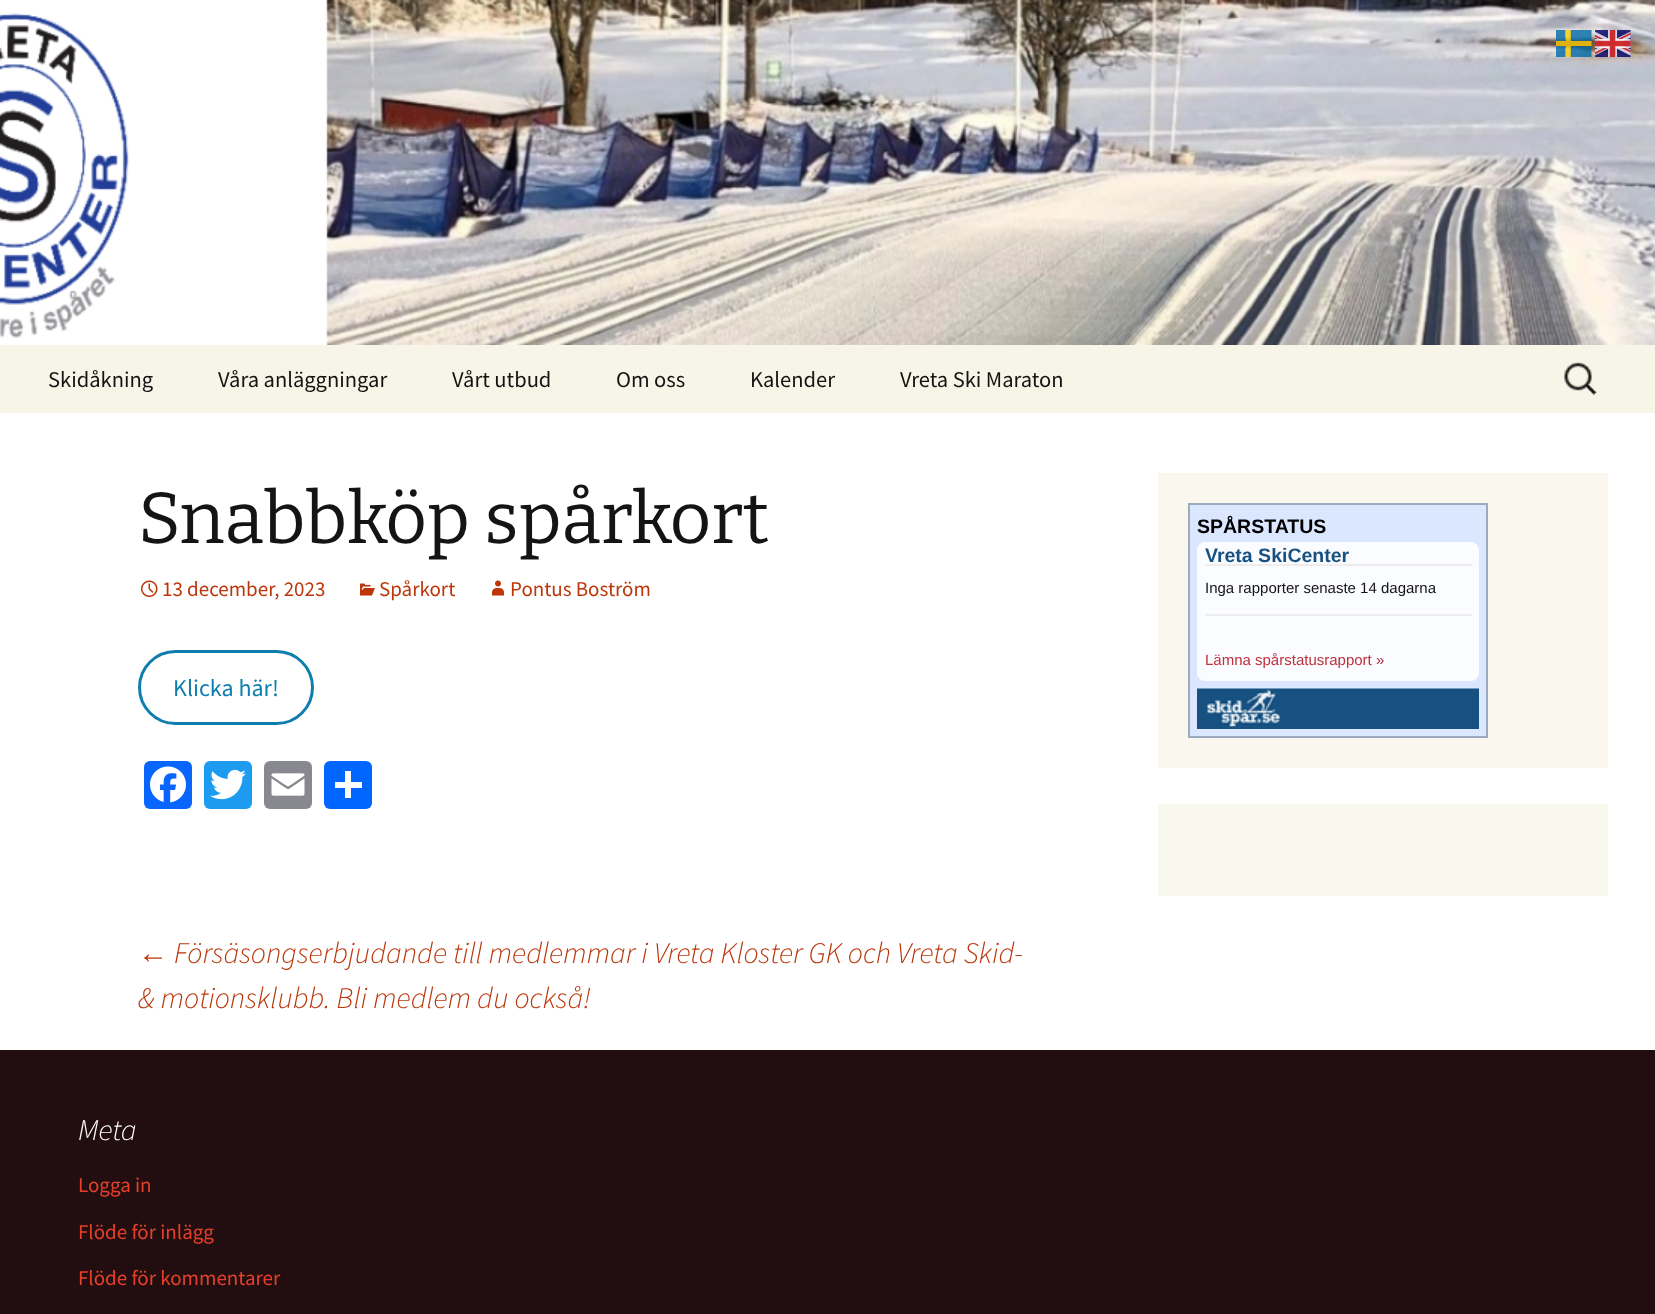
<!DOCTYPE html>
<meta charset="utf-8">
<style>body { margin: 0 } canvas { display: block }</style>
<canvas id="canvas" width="1655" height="1314"></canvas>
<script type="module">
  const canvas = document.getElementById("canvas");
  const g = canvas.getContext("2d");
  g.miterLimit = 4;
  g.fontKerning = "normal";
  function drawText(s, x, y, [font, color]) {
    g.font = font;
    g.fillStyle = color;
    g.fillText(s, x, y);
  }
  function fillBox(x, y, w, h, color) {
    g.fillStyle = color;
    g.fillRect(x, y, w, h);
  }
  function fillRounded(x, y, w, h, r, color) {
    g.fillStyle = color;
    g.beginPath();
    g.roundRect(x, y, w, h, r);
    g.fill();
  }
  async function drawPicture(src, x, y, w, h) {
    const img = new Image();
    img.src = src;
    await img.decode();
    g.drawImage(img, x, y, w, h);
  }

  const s1 = ["22.5px Source Sans Pro", "#141412"];
  const s2 = ["100 72px Bitter", "#141412"];
  const s3 = ["21px Source Sans Pro", "#BC360A"];
  const s4 = ["24px Source Sans Pro", "#0E7EAE"];
  const s5 = ["italic 30px Liberation Sans", "#BC360A"];
  const s6 = ["italic 300 30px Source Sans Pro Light", "#BC360A"];
  const s7 = ["bold 19.5px Liberation Sans", "#000000"];
  const s8 = ["bold 19.5px Liberation Sans", "#165182"];
  const s9 = ["15px Liberation Sans", "#141412"];
  const s10 = ["15px Liberation Sans", "#BF313C"];
  const s11 = ["italic 300 30px Source Sans Pro Light", "#FFFFFF"];
  const s12 = ["21px Source Sans Pro", "#E6402A"];

  fillBox(0, 0, 1655, 1314, "#FFFFFF");
  await drawPicture("pic3.png", 0, 0, 1655, 345);
  await drawPicture("pic1.png", 1556, 30, 36, 27);
  await drawPicture("pic2.png", 1595, 30, 36, 27);
  fillBox(0, 345, 1655, 68, "#F7F5E7");
  drawText("Skidåkning", 48, 387, s1);
  drawText("Våra anläggningar", 218, 387, s1);
  drawText("Vårt utbud", 452, 387, s1);
  drawText("Om oss", 616, 387, s1);
  drawText("Kalender", 750, 387, s1);
  drawText("Vreta Ski Maraton", 900, 387, s1);
  await drawPicture("pic4.png", 1564, 362, 33, 33);
  drawText("Snabbköp spårkort", 138, 543, s2);
  await drawPicture("pic5.png", 141, 580, 17, 17);
  drawText("13 december, 2023", 162, 596, s3);
  await drawPicture("pic6.png", 360, 583, 15, 13);
  drawText("Spårkort", 379, 596, s3);
  await drawPicture("pic7.png", 492, 580, 12, 16);
  drawText("Pontus Boström", 510, 596, s3);
  g.beginPath();
  g.roundRect(139.5, 651.5, 173, 72, 36);
  g.strokeStyle = "#0E7EAE";
  g.lineWidth = 3;
  g.stroke();
  drawText("Klicka här!", 173, 696, s4);
  fillRounded(144, 761, 48, 48, 6, "#0866FF");
  await drawPicture("pic8.png", 150, 766, 36, 37);
  fillRounded(204, 761, 48, 48, 6, "#1D9BF0");
  await drawPicture("pic9.png", 210, 769, 36, 31);
  fillRounded(264, 761, 48, 48, 6, "#888990");
  await drawPicture("pic10.png", 271, 773, 34, 23);
  fillRounded(324, 761, 48, 48, 6, "#0166FF");
  fillBox(345, 771, 6, 27, "#FFFFFF");
  fillBox(335, 782, 27, 6, "#FFFFFF");
  drawText("←", 138, 963, s5);
  drawText("Försäsongserbjudande till medlemmar i Vreta Kloster GK och Vreta Skid-", 174, 963, s6);
  drawText("& motionsklubb. Bli medlem du också!", 138, 1008, s6);
  fillBox(1158, 473, 450, 295, "#FAF8EE");
  g.fillStyle = "#DBE7FF";
  g.beginPath();
  g.rect(1189, 504, 298, 233);
  g.fill();
  g.strokeStyle = "#9BABBD";
  g.lineWidth = 2;
  g.stroke();
  drawText("SPÅRSTATUS", 1197, 533, s7);
  fillRounded(1197, 542, 282, 139, 8, "#FAFCFF");
  drawText("Vreta SkiCenter", 1205, 562, s8);
  fillBox(1205, 614, 267, 2, "#EDEDED");
  fillBox(1205, 564, 268, 2, "#EDEDED");
  drawText("Inga rapporter senaste 14 dagarna", 1205, 593, s9);
  drawText("Lämna spårstatusrapport »", 1205, 665, s10);
  await drawPicture("pic11.png", 1197, 688, 282, 41);
  fillBox(1158, 804, 450, 92, "#F9F8EE");
  fillBox(0, 1050, 1655, 264, "#220E10");
  drawText("Meta", 78, 1140, s11);
  drawText("Logga in", 78, 1192, s12);
  drawText("Flöde för inlägg", 78, 1239, s12);
  drawText("Flöde för kommentarer", 78, 1285, s12);
</script>
